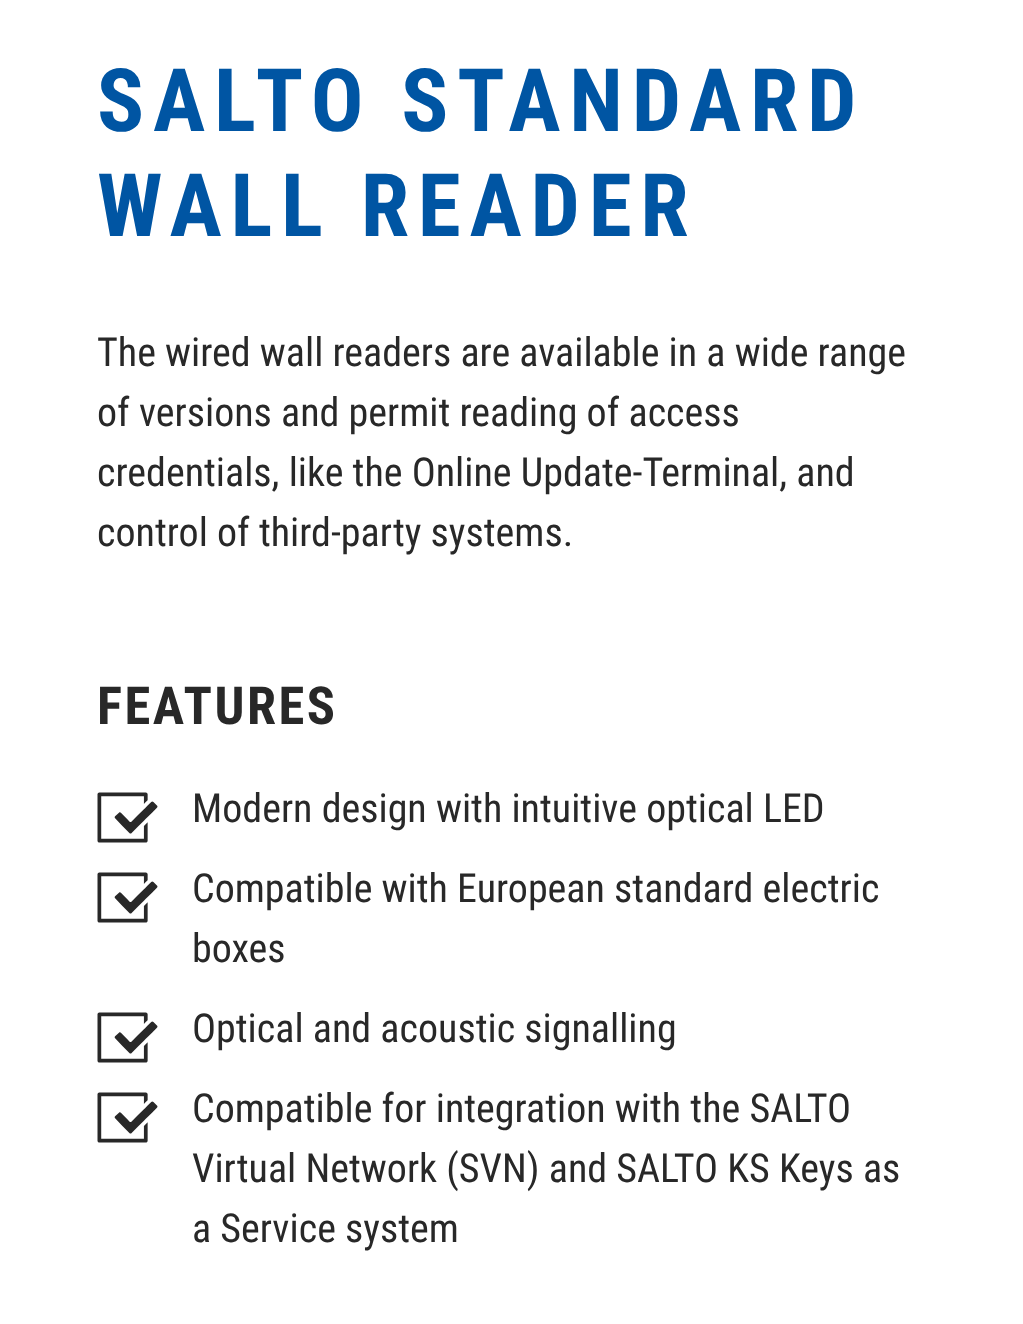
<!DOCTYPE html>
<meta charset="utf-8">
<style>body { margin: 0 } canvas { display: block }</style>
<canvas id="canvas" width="1023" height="1324"></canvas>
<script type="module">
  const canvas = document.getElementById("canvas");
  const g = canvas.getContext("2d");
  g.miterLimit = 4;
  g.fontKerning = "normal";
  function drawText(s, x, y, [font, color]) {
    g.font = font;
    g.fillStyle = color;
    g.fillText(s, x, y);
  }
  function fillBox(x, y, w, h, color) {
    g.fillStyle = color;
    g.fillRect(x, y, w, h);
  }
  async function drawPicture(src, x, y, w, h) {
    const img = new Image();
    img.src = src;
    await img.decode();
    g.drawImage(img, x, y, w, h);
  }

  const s1 = ["bold 87.5px Roboto Condensed", "#0055A3"];
  const s2 = ["40px Roboto Condensed", "#282828"];
  const s3 = ["bold 52.5px Roboto Condensed", "#282828"];

  fillBox(0, 0, 1023, 1324, "#FFFFFF");
  g.letterSpacing = "8.75px";
  drawText("SALTO STANDARD", 97, 131, s1);
  drawText("WALL READER", 97, 236, s1);
  g.letterSpacing = "0px";
  drawText("The wired wall readers are available in a wide range", 97, 366, s2);
  drawText("of versions and permit reading of access", 97, 426, s2);
  drawText("credentials, like the Online Update-Terminal, and", 97, 486, s2);
  drawText("control of third-party systems.", 97, 546, s2);
  g.letterSpacing = "2.5px";
  drawText("FEATURES", 97, 724, s3);
  await drawPicture("pic1.png", 97, 792, 61, 51);
  g.letterSpacing = "0px";
  drawText("Modern design with intuitive optical LED", 192, 822, s2);
  await drawPicture("pic1.png", 97, 872, 61, 51);
  drawText("Compatible with European standard electric", 192, 902, s2);
  drawText("boxes", 192, 962, s2);
  await drawPicture("pic2.png", 97, 1012, 61, 51);
  drawText("Optical and acoustic signalling", 192, 1042, s2);
  await drawPicture("pic1.png", 97, 1092, 61, 51);
  drawText("Compatible for integration with the SALTO", 192, 1122, s2);
  drawText("Virtual Network (SVN) and SALTO KS Keys as", 192, 1182, s2);
  drawText("a Service system", 192, 1242, s2);
</script>
